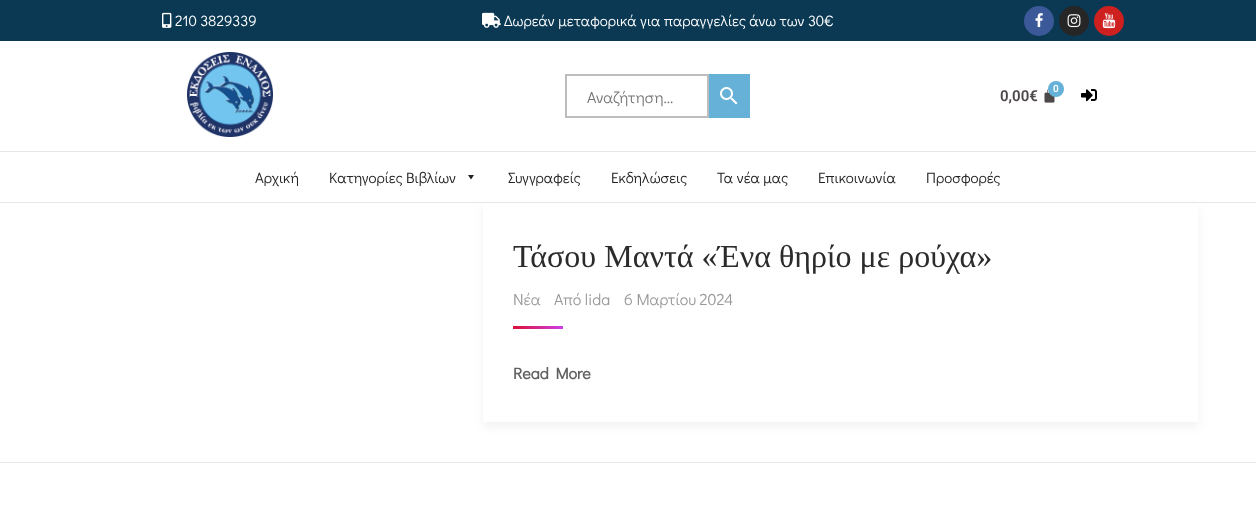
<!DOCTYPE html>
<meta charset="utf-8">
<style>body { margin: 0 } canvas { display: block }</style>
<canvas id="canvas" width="1256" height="509"></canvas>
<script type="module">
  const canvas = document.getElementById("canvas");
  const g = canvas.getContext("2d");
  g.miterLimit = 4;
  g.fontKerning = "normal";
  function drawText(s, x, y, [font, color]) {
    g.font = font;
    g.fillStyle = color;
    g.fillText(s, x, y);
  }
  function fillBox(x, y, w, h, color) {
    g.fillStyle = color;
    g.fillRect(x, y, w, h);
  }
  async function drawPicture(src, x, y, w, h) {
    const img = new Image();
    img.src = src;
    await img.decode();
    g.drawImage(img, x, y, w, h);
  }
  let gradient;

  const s1 = ["15px Didact Gothic", "#FFFFFF"];
  const s2 = ["16px Didact Gothic", "#757575"];
  const s3 = ["600 10px Roboto", "#FFFFFF"];
  const s4 = ["600 15px Roboto", "#4D4848"];
  const s5 = ["15px Didact Gothic", "#222222"];
  const s6 = ["32px Liberation Serif", "#2B2B2B"];
  const s7 = ["16px Didact Gothic", "#999999"];
  const s8 = ["bold 16px Didact Gothic", "#616161"];

  fillBox(0, 0, 1256, 509, "#FFFFFF");
  fillBox(0, 0, 1256, 41, "#0B3954");
  await drawPicture("pic1.png", 162, 12, 10, 16);
  drawText("210 3829339", 175, 26, s1);
  await drawPicture("pic2.png", 482, 12, 19, 16);
  drawText("Δωρεάν μεταφορικά για παραγγελίες άνω των 30€", 504, 26, s1);
  g.fillStyle = "#3B5998";
  g.beginPath();
  g.arc(1039, 21, 15, 0, Math.PI * 2);
  g.fill();
  await drawPicture("pic3.png", 1035, 13, 8, 15);
  g.fillStyle = "#262626";
  g.beginPath();
  g.arc(1074, 21, 15, 0, Math.PI * 2);
  g.fill();
  await drawPicture("pic4.png", 1067, 14, 14, 14);
  g.fillStyle = "#CD201F";
  g.beginPath();
  g.arc(1109, 21, 15, 0, Math.PI * 2);
  g.fill();
  await drawPicture("pic5.png", 1102, 13, 14, 16);
  await drawPicture("pic6.png", 187, 52, 86, 85);
  g.strokeStyle = "#BDBDBD";
  g.lineWidth = 2;
  g.strokeRect(566, 75, 142, 42);
  drawText("Αναζήτηση...", 587, 103, s2);
  fillBox(709, 74, 41, 44, "#65B1D7");
  await drawPicture("pic7.png", 720, 87, 18, 18);
  await drawPicture("pic8.png", 1044, 89, 11, 14);
  g.beginPath();
  g.arc(1056, 89, 8, 0, Math.PI * 2);
  g.fill();
  drawText("0", 1053, 92, s3);
  drawText("0,00€", 1000, 101, s4);
  await drawPicture("pic9.png", 1081, 89, 16, 13);
  fillBox(0, 151, 1256, 1, "#E6E6E6");
  g.save();
  g.beginPath();
  g.moveTo(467, 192);
  g.lineTo(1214, 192);
  g.lineTo(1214, 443);
  g.lineTo(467, 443);
  g.closePath();
  g.moveTo(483, 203);
  g.lineTo(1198, 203);
  g.lineTo(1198, 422);
  g.lineTo(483, 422);
  g.closePath();
  g.clip("evenodd");
  g.fillStyle = "rgba(0, 0, 0, 0.05)";
  g.filter = "blur(5px)";
  g.beginPath();
  g.rect(483, 208, 715, 219);
  g.fill();
  g.filter = "none";
  g.restore();
  fillBox(0, 202, 1256, 1, "#E6E6E6");
  drawText("Αρχική", 255, 183, s5);
  drawText("Κατηγορίες Βιβλίων", 329, 183, s5);
  g.beginPath();
  g.moveTo(474, 175);
  g.lineTo(471, 179.5);
  g.lineTo(468, 175);
  g.closePath();
  g.fill();
  drawText("Συγγραφείς", 508, 183, s5);
  drawText("Εκδηλώσεις", 611, 183, s5);
  drawText("Τα νέα μας", 717, 183, s5);
  drawText("Επικοινωνία", 818, 183, s5);
  drawText("Προσφορές", 926, 183, s5);
  drawText("Τάσου Μαντά «Ένα θηρίο με ρούχα»", 513, 267, s6);
  drawText("Νέα", 513, 305, s7);
  drawText("Από lida", 554, 305, s7);
  drawText("6 Μαρτίου 2024", 624, 305, s7);
  gradient = g.createLinearGradient(513, 328, 563, 328);
  gradient.addColorStop(0, "#DB1037");
  gradient.addColorStop(1, "#CD40E6");
  g.fillStyle = gradient;
  g.fillRect(513, 326, 50, 3);
  drawText("Read More", 513, 379, s8);
  fillBox(0, 462, 1256, 1, "#E6E6E6");
</script>
